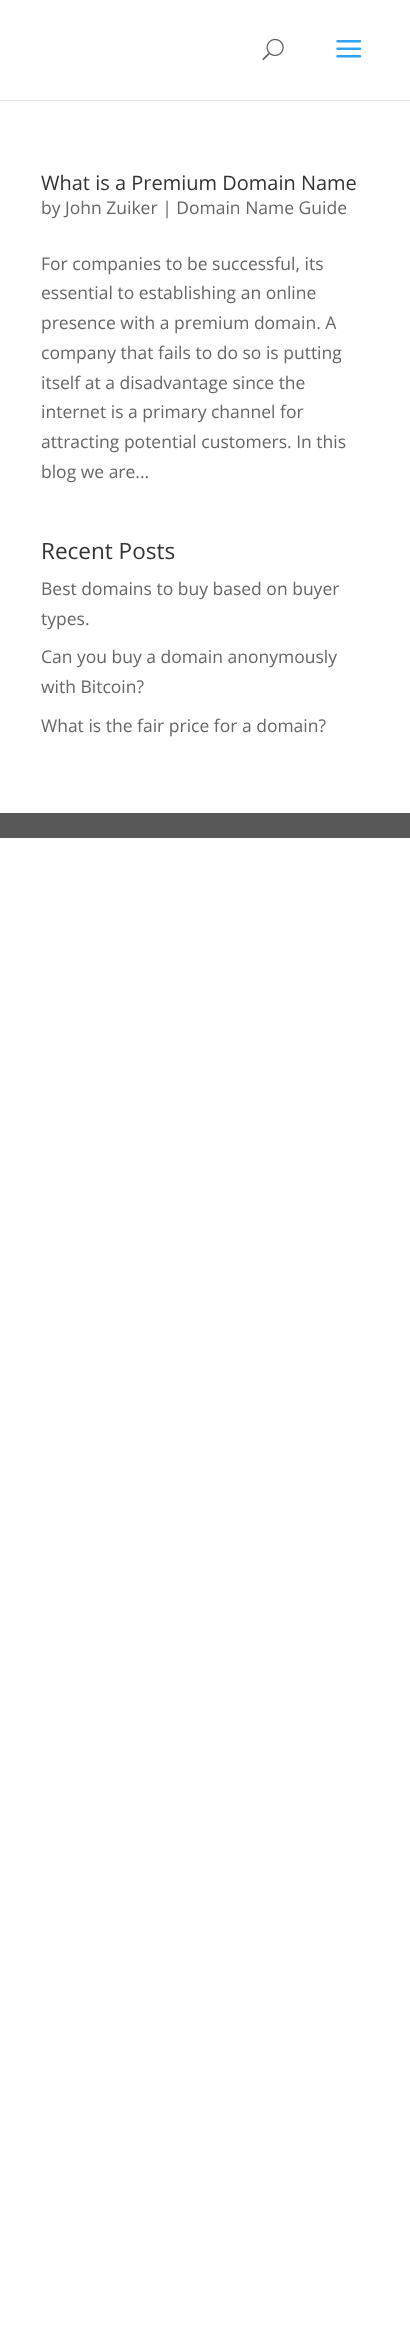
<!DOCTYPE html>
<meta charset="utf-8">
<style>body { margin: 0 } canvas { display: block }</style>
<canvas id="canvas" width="410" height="2346"></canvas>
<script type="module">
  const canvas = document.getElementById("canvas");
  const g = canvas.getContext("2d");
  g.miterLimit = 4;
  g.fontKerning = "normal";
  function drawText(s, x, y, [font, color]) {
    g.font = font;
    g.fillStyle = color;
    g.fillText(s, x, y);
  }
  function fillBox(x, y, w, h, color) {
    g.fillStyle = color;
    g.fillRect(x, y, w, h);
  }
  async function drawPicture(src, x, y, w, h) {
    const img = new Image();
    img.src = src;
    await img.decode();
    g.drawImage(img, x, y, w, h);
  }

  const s1 = ["20px Open Sans", "#333333"];
  const s2 = ["17.5px Open Sans", "#666666"];
  const s3 = ["22.5px Open Sans", "#333333"];

  fillBox(0, 0, 410, 2346, "#FFFFFF");
  fillBox(0, 100, 410, 1, "#E6E6E6");
  await drawPicture("pic1.png", 262, 38, 22, 23);
  await drawPicture("pic2.png", 336, 40, 26, 18);
  drawText("What is a Premium Domain Name", 41, 190, s1);
  drawText("by John Zuiker | Domain Name Guide", 41, 214, s2);
  drawText("For companies to be successful, its", 41, 270, s2);
  drawText("essential to establishing an online", 41, 299, s2);
  drawText("presence with a premium domain. A", 41, 329, s2);
  drawText("company that fails to do so is putting", 41, 359, s2);
  drawText("itself at a disadvantage since the", 41, 389, s2);
  drawText("internet is a primary channel for", 41, 418, s2);
  drawText("attracting potential customers. In this", 41, 448, s2);
  drawText("blog we are...", 41, 478, s2);
  drawText("Recent Posts", 41, 559, s3);
  drawText("Best domains to buy based on buyer", 41, 595, s2);
  drawText("types.", 41, 625, s2);
  drawText("Can you buy a domain anonymously", 41, 663, s2);
  drawText("with Bitcoin?", 41, 693, s2);
  drawText("What is the fair price for a domain?", 41, 732, s2);
  fillBox(0, 813, 410, 25, "#585858");
</script>
